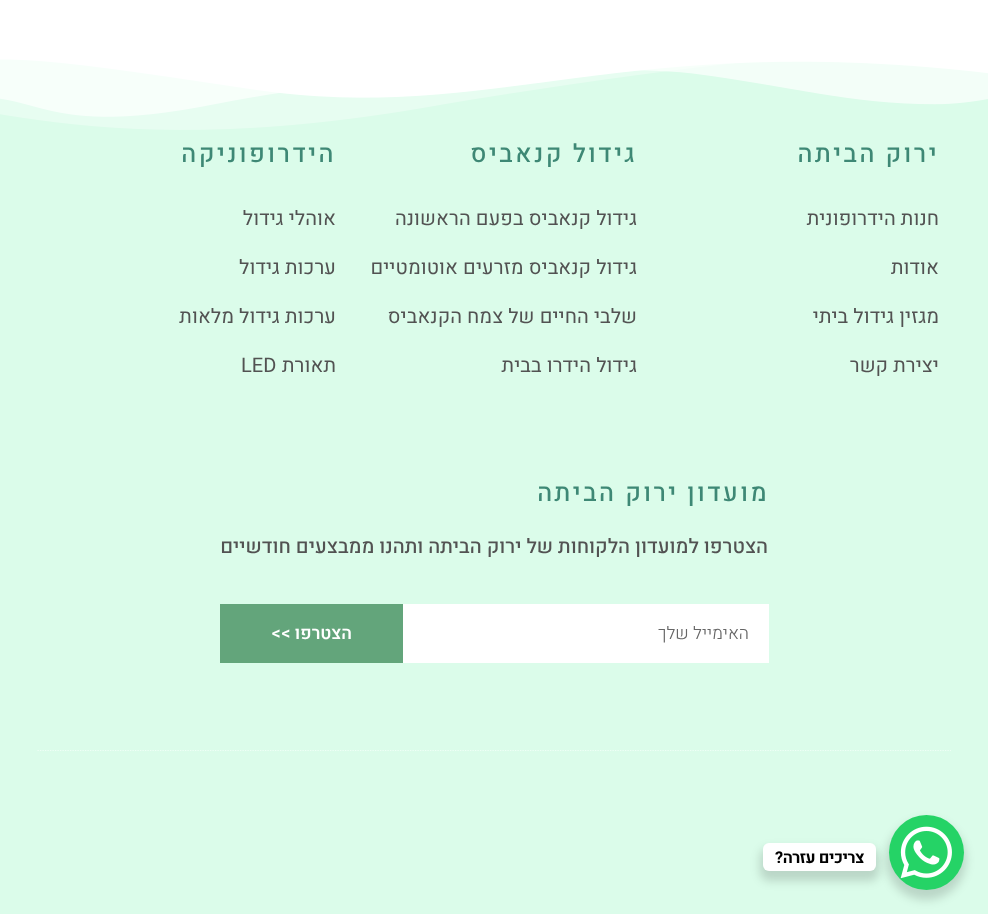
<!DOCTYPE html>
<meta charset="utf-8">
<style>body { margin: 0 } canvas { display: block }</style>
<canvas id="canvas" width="988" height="914"></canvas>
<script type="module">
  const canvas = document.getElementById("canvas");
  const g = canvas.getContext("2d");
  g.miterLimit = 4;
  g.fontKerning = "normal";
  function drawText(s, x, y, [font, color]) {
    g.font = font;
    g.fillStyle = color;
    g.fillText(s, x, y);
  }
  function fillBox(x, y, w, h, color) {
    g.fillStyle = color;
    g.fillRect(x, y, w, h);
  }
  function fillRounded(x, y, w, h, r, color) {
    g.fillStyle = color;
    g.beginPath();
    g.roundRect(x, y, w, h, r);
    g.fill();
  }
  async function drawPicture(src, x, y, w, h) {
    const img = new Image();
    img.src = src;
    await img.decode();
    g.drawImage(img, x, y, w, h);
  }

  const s1 = ["500 25px Heebo", "#3E8875"];
  const s2 = ["20px Heebo", "#525252"];
  const s3 = ["500 20px Heebo", "#525252"];
  const s4 = ["300 17.5px Heebo", "#666666"];
  const s5 = ["600 17.5px Heebo", "#FFFFFF"];
  const s6 = ["bold 16.25px Heebo", "#000000"];

  fillBox(0, 0, 988, 914, "#FFFFFF");
  fillBox(0, 59, 988, 855, "#DBFCEA");
  await drawPicture("pic1.png", 0, 53, 988, 77);
  g.letterSpacing = "2.5px";
  g.direction = "rtl";
  drawText("ירוק הביתה", 939, 162, s1);
  g.letterSpacing = "0.1px";
  drawText("חנות הידרופונית", 939, 225, s2);
  drawText("אודות", 939, 274, s2);
  drawText("מגזין גידול ביתי", 939, 323, s2);
  drawText("יצירת קשר", 939, 372, s2);
  g.letterSpacing = "2.5px";
  drawText("גידול קנאביס", 637, 162, s1);
  g.letterSpacing = "0.1px";
  drawText("גידול קנאביס בפעם הראשונה", 637, 225, s2);
  drawText("גידול קנאביס מזרעים אוטומטיים", 637, 274, s2);
  drawText("שלבי החיים של צמח הקנאביס", 637, 323, s2);
  drawText("גידול הידרו בבית", 637, 372, s2);
  g.letterSpacing = "2.5px";
  drawText("הידרופוניקה", 336, 162, s1);
  g.letterSpacing = "0.1px";
  drawText("אוהלי גידול", 336, 225, s2);
  drawText("ערכות גידול", 336, 274, s2);
  drawText("ערכות גידול מלאות", 336, 323, s2);
  drawText("תאורת", 336, 372, s2);
  g.direction = "ltr";
  drawText("LED", 241, 372, s2);
  g.letterSpacing = "2.5px";
  g.direction = "rtl";
  drawText("מועדון ירוק הביתה", 769, 501, s1);
  g.letterSpacing = "0px";
  drawText("הצטרפו למועדון הלקוחות של ירוק הביתה ותהנו ממבצעים חודשיים", 768, 553, s3);
  fillBox(403, 604, 366, 59, "#FFFFFF");
  drawText("האימייל שלך", 749, 639, s4);
  fillBox(220, 604, 183, 59, "#63A57B");
  drawText("הצטרפו >>", 352, 639, s5);
  g.beginPath();
  g.moveTo(37.5, 750.5);
  g.lineTo(951, 750.5);
  g.strokeStyle = "#EFFEF6";
  g.lineWidth = 1.2;
  g.setLineDash([1.25, 1.25]);
  g.stroke();
  g.fillStyle = "rgba(0, 0, 0, 0.15)";
  g.filter = "blur(5px)";
  g.beginPath();
  g.roundRect(886, 820, 80, 80, 40);
  g.fill();
  g.filter = "none";
  g.fillStyle = "#25D366";
  g.beginPath();
  g.arc(926.5, 852.5, 37.5, 0, Math.PI * 2);
  g.fill();
  await drawPicture("pic2.png", 900, 826, 52, 53);
  g.fillStyle = "rgba(0, 0, 0, 0.15)";
  g.filter = "blur(5px)";
  g.beginPath();
  g.roundRect(760, 848, 119, 33, 9);
  g.fill();
  g.filter = "none";
  fillRounded(763, 843, 113, 28, 6, "#FFFFFF");
  g.letterSpacing = "-0.5px";
  drawText("צריכים עזרה?", 864, 863, s6);
</script>
